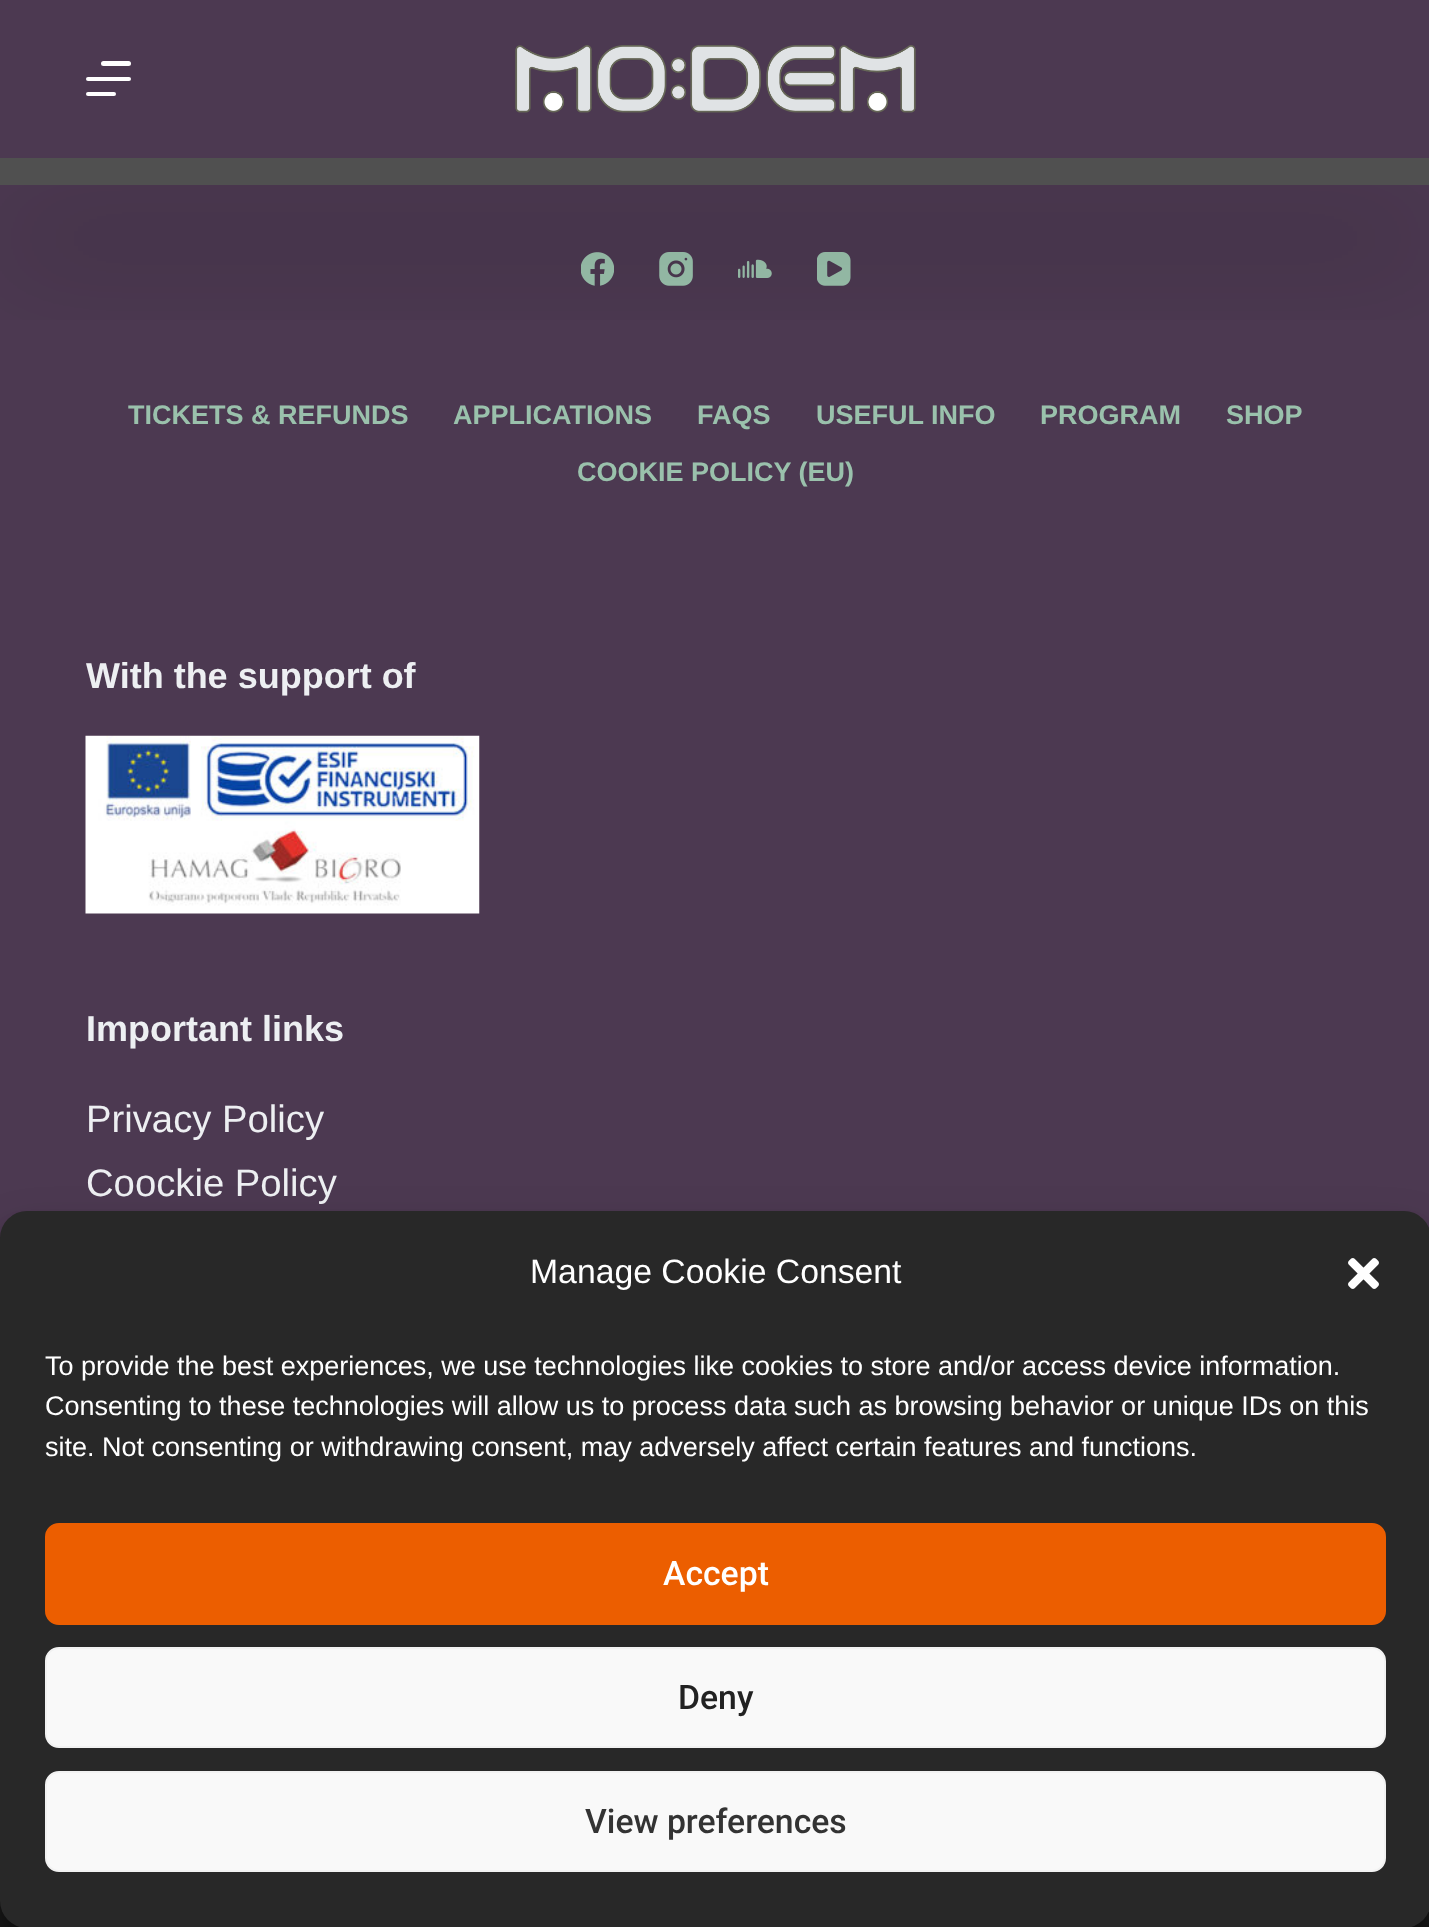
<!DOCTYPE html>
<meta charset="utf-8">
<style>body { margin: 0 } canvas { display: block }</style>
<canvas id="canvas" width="1429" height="1927"></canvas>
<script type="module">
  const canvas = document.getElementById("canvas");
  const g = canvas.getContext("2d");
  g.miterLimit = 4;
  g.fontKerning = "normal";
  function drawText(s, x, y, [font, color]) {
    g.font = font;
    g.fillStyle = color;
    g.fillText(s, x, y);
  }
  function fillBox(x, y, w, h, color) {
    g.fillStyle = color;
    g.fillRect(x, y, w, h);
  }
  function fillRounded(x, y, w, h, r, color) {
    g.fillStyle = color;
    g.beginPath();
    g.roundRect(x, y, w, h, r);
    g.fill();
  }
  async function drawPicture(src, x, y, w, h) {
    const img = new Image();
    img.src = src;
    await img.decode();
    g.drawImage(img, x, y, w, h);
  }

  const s1 = ["bold 27px Liberation Sans", "#9AC1AC"];
  const s2 = ["bold 36px Liberation Sans", "#EDEFF2"];
  const s3 = ["38.25px Liberation Sans", "#EDEFF2"];
  const s4 = ["33.75px Liberation Sans", "#FFFFFF"];
  const s5 = ["27px Liberation Sans", "#FFFFFF"];
  const s6 = ["500 33.75px Roboto", "#FFFFFF"];
  const s7 = ["500 33.75px Roboto", "#222222"];
  const s8 = ["500 33.75px Roboto", "#333333"];

  fillBox(0, 0, 1429, 1927, "#505050");
  fillBox(0, 185, 1429, 1053, "#4C3951");
  await drawPicture("pic2.png", 581, 252, 33, 34);
  await drawPicture("pic3.png", 659, 252, 34, 34);
  await drawPicture("pic4.png", 738, 259, 34, 19);
  await drawPicture("pic5.png", 817, 252, 34, 34);
  g.save();
  g.beginPath();
  g.rect(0, 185, 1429, 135);
  g.clip();
  g.fillStyle = "rgba(0, 0, 0, 0.3)";
  g.filter = "blur(56px)";
  g.beginPath();
  g.rect(0, 225, 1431, 27);
  g.fill();
  g.filter = "none";
  g.restore();
  fillBox(0, 0, 1429, 158, "#4C3951");
  fillRounded(101, 61, 30, 5, 2.5, "#FFFFFF");
  fillRounded(86, 77, 45, 4, 2, "#FFFFFF");
  fillRounded(86, 92, 30, 4, 2, "#FFFFFF");
  await drawPicture("pic1.png", 515, 45, 401, 68);
  drawText("TICKETS & REFUNDS", 128, 424, s1);
  drawText("APPLICATIONS", 453, 424, s1);
  drawText("FAQS", 697, 424, s1);
  drawText("USEFUL INFO", 816, 424, s1);
  drawText("PROGRAM", 1040, 424, s1);
  drawText("SHOP", 1226, 424, s1);
  drawText("COOKIE POLICY (EU)", 577, 481, s1);
  drawText("With the support of", 86, 688, s2);
  await drawPicture("pic6.png", 85, 735, 395, 179);
  drawText("Important links", 86, 1041, s2);
  drawText("Privacy Policy", 86, 1132, s3);
  drawText("Coockie Policy", 86, 1196, s3);
  fillBox(0, 1901, 1429, 26, "#181818");
  g.fillStyle = "rgba(0, 0, 0, 0.23)";
  g.filter = "blur(7px)";
  g.beginPath();
  g.roundRect(0, 1224, 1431, 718, 27);
  g.fill();
  g.filter = "none";
  g.fillStyle = "rgba(0, 0, 0, 0.19)";
  g.filter = "blur(22.5px)";
  g.beginPath();
  g.roundRect(0, 1233, 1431, 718, 27);
  g.fill();
  g.filter = "none";
  fillRounded(0, 1211, 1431, 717, 27, "#282828");
  drawText("Manage Cookie Consent", 530, 1283, s4);
  await drawPicture("pic7.png", 1348, 1258, 31, 31);
  drawText("To provide the best experiences, we use technologies like cookies to store and/or access device information.", 45, 1375, s5);
  drawText("Consenting to these technologies will allow us to process data such as browsing behavior or unique IDs on this", 45, 1415, s5);
  drawText("site. Not consenting or withdrawing consent, may adversely affect certain features and functions.", 45, 1456, s5);
  g.fillStyle = "#EC5E00";
  g.beginPath();
  g.roundRect(46, 1524, 1339, 100, 13);
  g.fill();
  g.strokeStyle = "#EC5E00";
  g.lineWidth = 2;
  g.stroke();
  drawText("Accept", 663, 1585, s6);
  g.fillStyle = "#F9F9F9";
  g.beginPath();
  g.roundRect(46, 1648, 1339, 99, 13);
  g.fill();
  g.strokeStyle = "#F2F2F2";
  g.stroke();
  drawText("Deny", 678, 1709, s7);
  g.fillStyle = "#F9F9F9";
  g.beginPath();
  g.roundRect(46, 1772, 1339, 99, 13);
  g.fill();
  g.stroke();
  drawText("View preferences", 585, 1833, s8);
</script>
